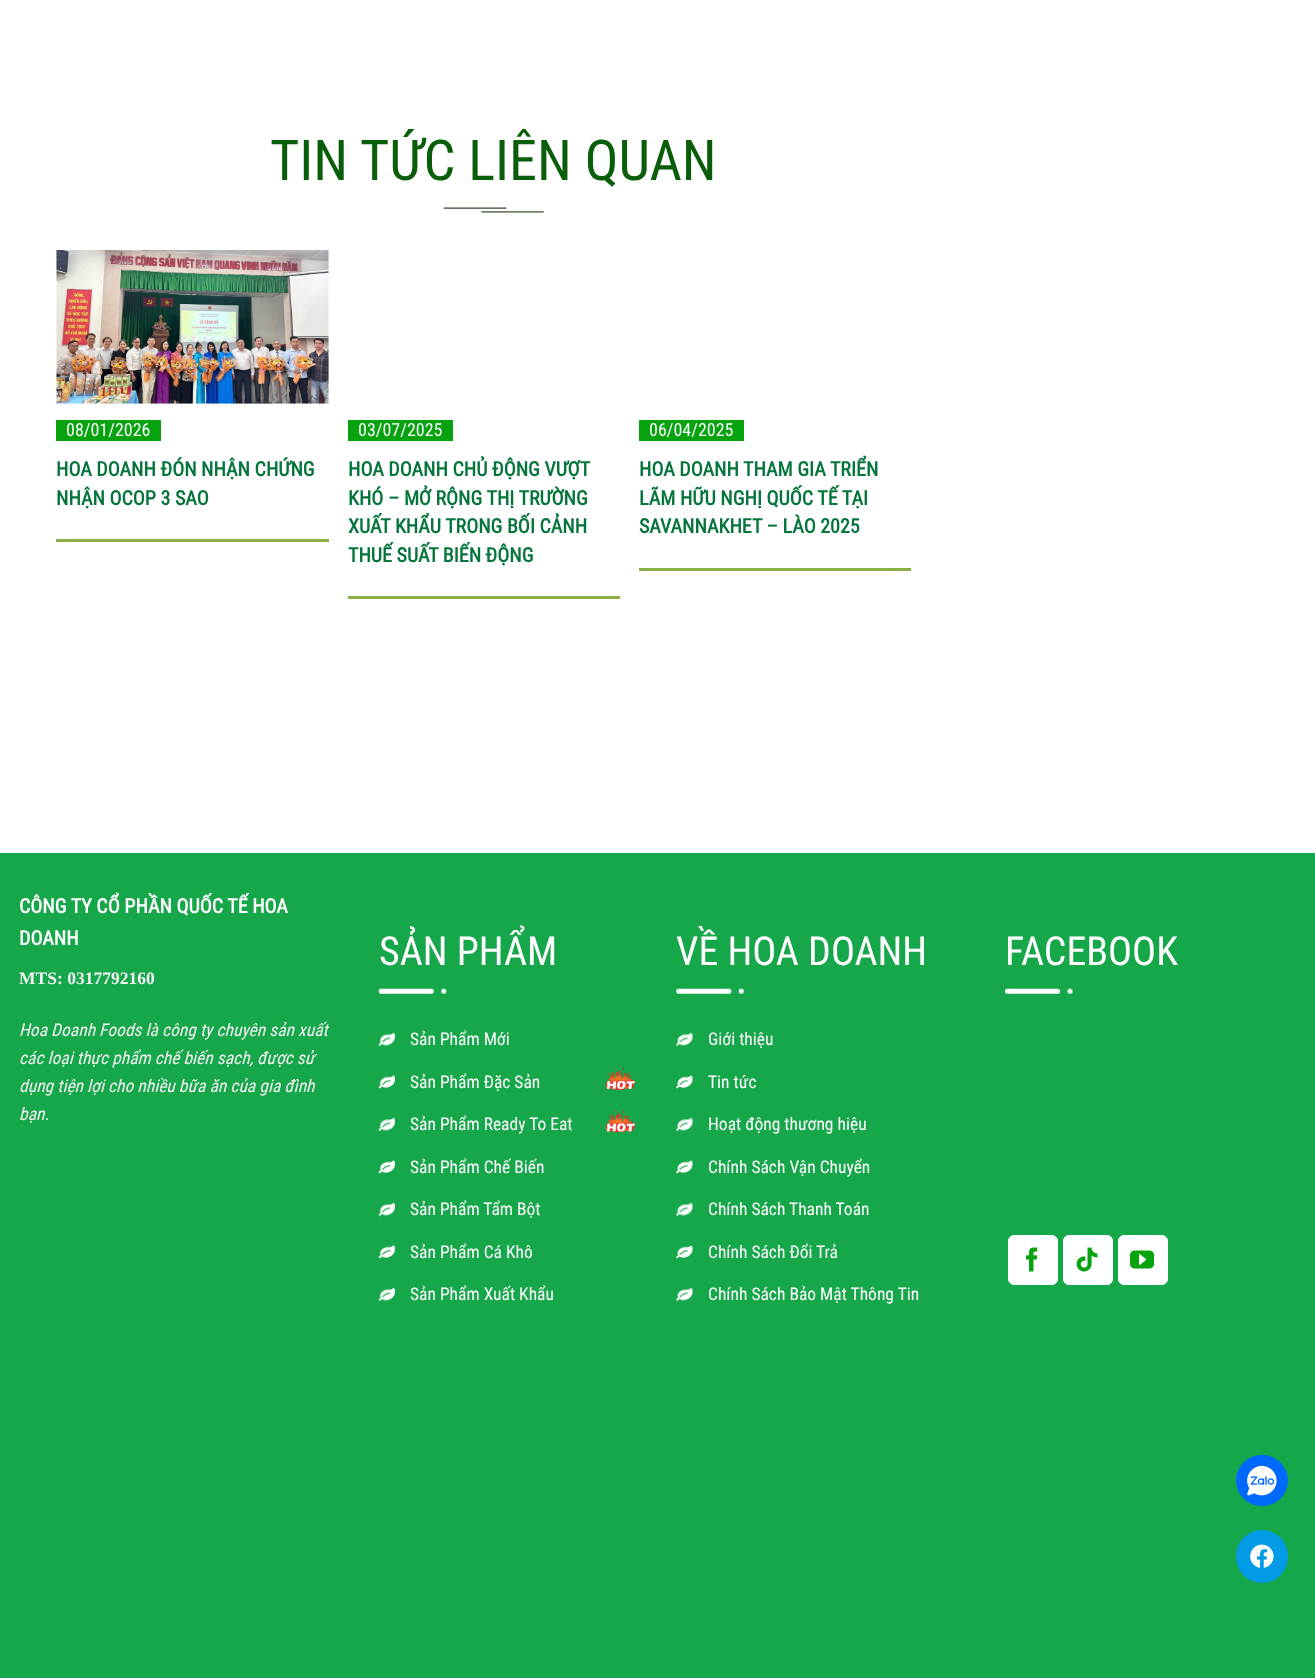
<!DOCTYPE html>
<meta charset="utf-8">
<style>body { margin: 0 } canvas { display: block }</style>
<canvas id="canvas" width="1315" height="1678"></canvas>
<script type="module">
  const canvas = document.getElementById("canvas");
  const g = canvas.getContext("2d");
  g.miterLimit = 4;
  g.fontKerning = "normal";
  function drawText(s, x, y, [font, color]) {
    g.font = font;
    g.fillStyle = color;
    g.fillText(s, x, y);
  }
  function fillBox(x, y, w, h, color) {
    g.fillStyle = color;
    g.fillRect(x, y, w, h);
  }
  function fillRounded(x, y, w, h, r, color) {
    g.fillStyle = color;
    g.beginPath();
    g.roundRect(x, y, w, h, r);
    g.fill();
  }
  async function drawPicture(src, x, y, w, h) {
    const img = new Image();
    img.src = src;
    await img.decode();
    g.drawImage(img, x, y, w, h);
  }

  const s1 = ["56.25px Roboto Condensed", "#0A5E09"];
  const s2 = ["18px Roboto Condensed", "#FFFFFF"];
  const s3 = ["bold 20px Roboto Condensed", "#05753C"];
  const s4 = ["bold 20px Roboto Condensed", "#FFFFFF"];
  const s5 = ["bold 17.5px Liberation Serif", "#F1F1F1"];
  const s6 = ["italic 17.5px Roboto Condensed", "#F1F1F1"];
  const s7 = ["40px Roboto Condensed", "#FFFFFF"];
  const s8 = ["17.5px Roboto Condensed", "#FFFFFF"];

  fillBox(0, 0, 1315, 1678, "#FFFFFF");
  await drawPicture("pic1.png", 443, 207, 101, 6);
  drawText("TIN TỨC LIÊN QUAN", 270, 180, s1);
  await drawPicture("pic2.png", 56, 250, 273, 154);
  fillBox(56, 539, 273, 3, "#8CB045");
  fillBox(56, 420, 105, 21, "#06A30E");
  drawText("08/01/2026", 66, 436, s2);
  drawText("HOA DOANH ĐÓN NHẬN CHỨNG", 56, 476, s3);
  drawText("NHẬN OCOP 3 SAO", 56, 505, s3);
  fillBox(348, 596, 272, 3, "#8CB045");
  fillBox(348, 420, 105, 21, "#06A30E");
  drawText("03/07/2025", 358, 436, s2);
  drawText("HOA DOANH CHỦ ĐỘNG VƯỢT", 348, 476, s3);
  drawText("KHÓ – MỞ RỘNG THỊ TRƯỜNG", 348, 505, s3);
  drawText("XUẤT KHẨU TRONG BỐI CẢNH", 348, 533, s3);
  drawText("THUẾ SUẤT BIẾN ĐỘNG", 348, 562, s3);
  fillBox(639, 568, 272, 3, "#8CB045");
  fillBox(639, 420, 105, 21, "#06A30E");
  drawText("06/04/2025", 649, 436, s2);
  drawText("HOA DOANH THAM GIA TRIỂN", 639, 476, s3);
  drawText("LÃM HỮU NGHỊ QUỐC TẾ TẠI", 639, 505, s3);
  drawText("SAVANNAKHET – LÀO 2025", 639, 533, s3);
  fillBox(0, 853, 1315, 825, "#17A74B");
  drawText("CÔNG TY CỔ PHẦN QUỐC TẾ HOA", 19, 913, s4);
  drawText("DOANH", 19, 945, s4);
  drawText("MTS: 0317792160", 19, 984, s5);
  drawText("Hoa Doanh Foods là công ty chuyên sản xuất", 19, 1036, s6);
  drawText("các loại thực phẩm chế biến sạch, được sử", 19, 1064, s6);
  drawText("dụng tiện lợi cho nhiều bữa ăn của gia đình", 19, 1092, s6);
  drawText("bạn.", 19, 1120, s6);
  await drawPicture("pic3.png", 378, 988, 69, 6);
  drawText("SẢN PHẨM", 379, 965, s7);
  await drawPicture("pic4.png", 378, 1032, 17, 15);
  drawText("Sản Phẩm Mới", 410, 1045, s8);
  await drawPicture("pic5.png", 378, 1074, 17, 15);
  drawText("Sản Phẩm Đặc Sản", 410, 1088, s8);
  await drawPicture("pic6.png", 605, 1068, 30, 22);
  await drawPicture("pic4.png", 378, 1117, 17, 15);
  drawText("Sản Phẩm Ready To Eat", 410, 1130, s8);
  await drawPicture("pic7.png", 605, 1110, 30, 23);
  await drawPicture("pic5.png", 378, 1159, 17, 15);
  drawText("Sản Phẩm Chế Biến", 410, 1173, s8);
  await drawPicture("pic4.png", 378, 1202, 17, 15);
  drawText("Sản Phẩm Tẩm Bột", 410, 1215, s8);
  await drawPicture("pic5.png", 378, 1244, 17, 15);
  drawText("Sản Phẩm Cá Khô", 410, 1258, s8);
  await drawPicture("pic4.png", 378, 1287, 17, 15);
  drawText("Sản Phẩm Xuất Khẩu", 410, 1300, s8);
  await drawPicture("pic8.png", 676, 988, 68, 6);
  drawText("VỀ HOA DOANH", 676, 965, s7);
  await drawPicture("pic9.png", 676, 1032, 17, 15);
  drawText("Giới thiệu", 708, 1045, s8);
  await drawPicture("pic10.png", 676, 1075, 17, 14);
  drawText("Tin tức", 708, 1088, s8);
  await drawPicture("pic9.png", 676, 1117, 17, 15);
  drawText("Hoạt động thương hiệu", 708, 1130, s8);
  await drawPicture("pic10.png", 676, 1160, 17, 14);
  drawText("Chính Sách Vận Chuyển", 708, 1173, s8);
  await drawPicture("pic9.png", 676, 1202, 17, 15);
  drawText("Chính Sách Thanh Toán", 708, 1215, s8);
  await drawPicture("pic10.png", 676, 1245, 17, 14);
  drawText("Chính Sách Đổi Trả", 708, 1258, s8);
  await drawPicture("pic9.png", 676, 1287, 17, 15);
  drawText("Chính Sách Bảo Mật Thông Tin", 708, 1300, s8);
  await drawPicture("pic11.png", 1005, 988, 68, 6);
  drawText("FACEBOOK", 1005, 965, s7);
  g.beginPath();
  g.roundRect(1008.5, 1235.5, 49, 49, 5.5);
  g.fill();
  g.strokeStyle = "#FFFFFF";
  g.stroke();
  await drawPicture("pic12.png", 1026, 1247, 12, 25);
  g.beginPath();
  g.roundRect(1063.5, 1235.5, 49, 49, 5.5);
  g.fill();
  g.stroke();
  await drawPicture("pic13.png", 1076, 1247, 22, 25);
  g.beginPath();
  g.roundRect(1118.5, 1235.5, 49, 49, 5.5);
  g.fill();
  g.stroke();
  await drawPicture("pic14.png", 1130, 1250, 24, 19);
  fillRounded(1236, 1455, 52, 51, 25.5, "#0068FF");
  await drawPicture("pic15.png", 1247, 1465, 30, 31);
  fillRounded(1236, 1530, 52, 53, 26, "#039BE5");
  await drawPicture("pic16.png", 1250, 1544, 24, 24);
</script>
